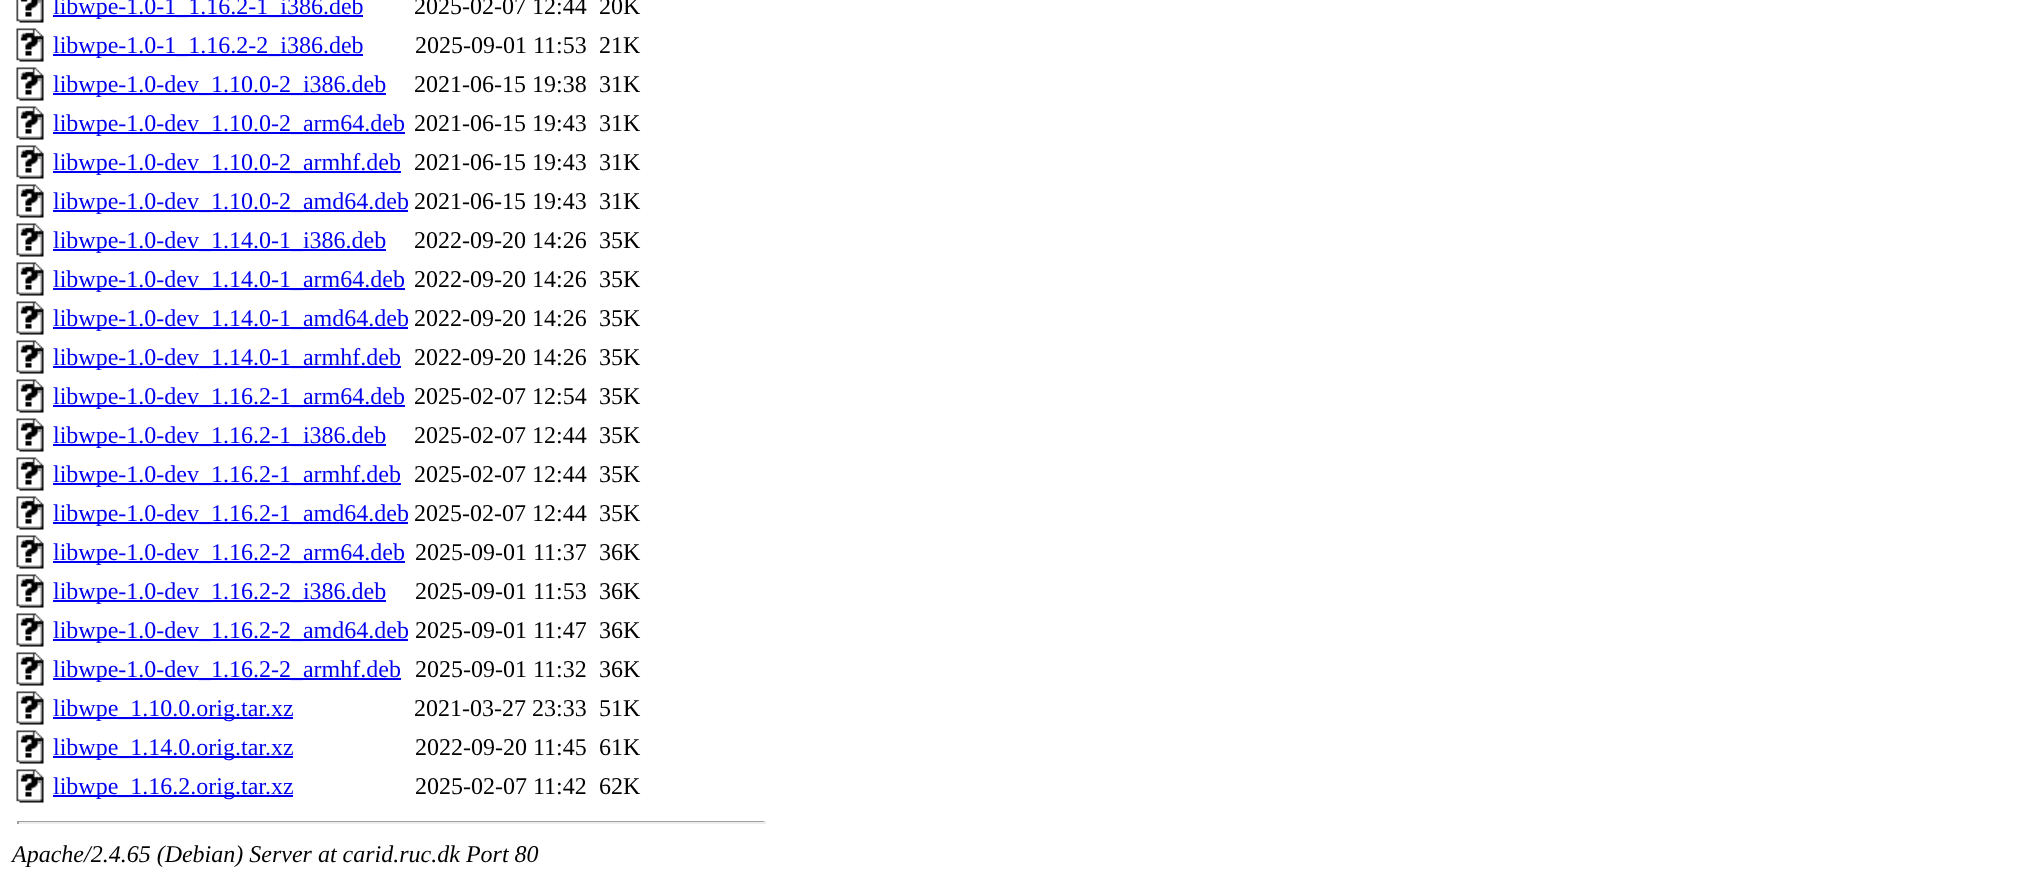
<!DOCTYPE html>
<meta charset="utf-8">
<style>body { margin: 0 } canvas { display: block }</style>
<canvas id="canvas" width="2041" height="879"></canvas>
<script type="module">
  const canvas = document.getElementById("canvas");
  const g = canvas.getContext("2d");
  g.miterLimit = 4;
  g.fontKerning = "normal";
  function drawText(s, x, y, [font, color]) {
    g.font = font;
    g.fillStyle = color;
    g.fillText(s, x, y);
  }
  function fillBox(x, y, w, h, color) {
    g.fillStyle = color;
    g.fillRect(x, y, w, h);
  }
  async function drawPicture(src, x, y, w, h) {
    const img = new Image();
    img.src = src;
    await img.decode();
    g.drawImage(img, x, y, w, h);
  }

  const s1 = ["24px Liberation Serif", "#0000EE"];
  const s2 = ["24px Liberation Serif", "#000000"];
  const s3 = ["italic 24px Liberation Serif", "#000000"];

  fillBox(0, 0, 2041, 879, "#FFFFFF");
  await drawPicture("pic1.png", 16, 0, 28, 23);
  fillBox(53, 15, 310, 2, "#0000EE");
  drawText("libwpe-1.0-1_1.16.2-1_i386.deb", 53, 14, s1);
  drawText("2025-02-07 12:44", 414, 14, s2);
  drawText("20K", 599, 14, s2);
  await drawPicture("pic2.png", 16, 28, 28, 34);
  fillBox(53, 54, 310, 2, "#0000EE");
  drawText("libwpe-1.0-1_1.16.2-2_i386.deb", 53, 53, s1);
  drawText("2025-09-01 11:53", 415, 53, s2);
  drawText("21K", 599, 53, s2);
  await drawPicture("pic2.png", 16, 67, 28, 34);
  fillBox(53, 93, 333, 2, "#0000EE");
  drawText("libwpe-1.0-dev_1.10.0-2_i386.deb", 53, 92, s1);
  drawText("2021-06-15 19:38", 414, 92, s2);
  drawText("31K", 599, 92, s2);
  await drawPicture("pic2.png", 16, 106, 28, 34);
  fillBox(53, 132, 352, 2, "#0000EE");
  drawText("libwpe-1.0-dev_1.10.0-2_arm64.deb", 53, 131, s1);
  drawText("2021-06-15 19:43", 414, 131, s2);
  drawText("31K", 599, 131, s2);
  await drawPicture("pic2.png", 16, 145, 28, 34);
  fillBox(53, 171, 348, 2, "#0000EE");
  drawText("libwpe-1.0-dev_1.10.0-2_armhf.deb", 53, 170, s1);
  drawText("2021-06-15 19:43", 414, 170, s2);
  drawText("31K", 599, 170, s2);
  await drawPicture("pic2.png", 16, 184, 28, 34);
  fillBox(53, 210, 355, 2, "#0000EE");
  drawText("libwpe-1.0-dev_1.10.0-2_amd64.deb", 53, 209, s1);
  drawText("2021-06-15 19:43", 414, 209, s2);
  drawText("31K", 599, 209, s2);
  await drawPicture("pic2.png", 16, 223, 28, 34);
  fillBox(53, 249, 333, 2, "#0000EE");
  drawText("libwpe-1.0-dev_1.14.0-1_i386.deb", 53, 248, s1);
  drawText("2022-09-20 14:26", 414, 248, s2);
  drawText("35K", 599, 248, s2);
  await drawPicture("pic2.png", 16, 262, 28, 34);
  fillBox(53, 288, 352, 2, "#0000EE");
  drawText("libwpe-1.0-dev_1.14.0-1_arm64.deb", 53, 287, s1);
  drawText("2022-09-20 14:26", 414, 287, s2);
  drawText("35K", 599, 287, s2);
  await drawPicture("pic2.png", 16, 301, 28, 34);
  fillBox(53, 327, 355, 2, "#0000EE");
  drawText("libwpe-1.0-dev_1.14.0-1_amd64.deb", 53, 326, s1);
  drawText("2022-09-20 14:26", 414, 326, s2);
  drawText("35K", 599, 326, s2);
  await drawPicture("pic2.png", 16, 340, 28, 34);
  fillBox(53, 366, 348, 2, "#0000EE");
  drawText("libwpe-1.0-dev_1.14.0-1_armhf.deb", 53, 365, s1);
  drawText("2022-09-20 14:26", 414, 365, s2);
  drawText("35K", 599, 365, s2);
  await drawPicture("pic2.png", 16, 379, 28, 34);
  fillBox(53, 405, 352, 2, "#0000EE");
  drawText("libwpe-1.0-dev_1.16.2-1_arm64.deb", 53, 404, s1);
  drawText("2025-02-07 12:54", 414, 404, s2);
  drawText("35K", 599, 404, s2);
  await drawPicture("pic2.png", 16, 418, 28, 34);
  fillBox(53, 444, 333, 2, "#0000EE");
  drawText("libwpe-1.0-dev_1.16.2-1_i386.deb", 53, 443, s1);
  drawText("2025-02-07 12:44", 414, 443, s2);
  drawText("35K", 599, 443, s2);
  await drawPicture("pic2.png", 16, 457, 28, 34);
  fillBox(53, 483, 348, 2, "#0000EE");
  drawText("libwpe-1.0-dev_1.16.2-1_armhf.deb", 53, 482, s1);
  drawText("2025-02-07 12:44", 414, 482, s2);
  drawText("35K", 599, 482, s2);
  await drawPicture("pic2.png", 16, 496, 28, 34);
  fillBox(53, 522, 355, 2, "#0000EE");
  drawText("libwpe-1.0-dev_1.16.2-1_amd64.deb", 53, 521, s1);
  drawText("2025-02-07 12:44", 414, 521, s2);
  drawText("35K", 599, 521, s2);
  await drawPicture("pic2.png", 16, 535, 28, 34);
  fillBox(53, 561, 352, 2, "#0000EE");
  drawText("libwpe-1.0-dev_1.16.2-2_arm64.deb", 53, 560, s1);
  drawText("2025-09-01 11:37", 415, 560, s2);
  drawText("36K", 599, 560, s2);
  await drawPicture("pic2.png", 16, 574, 28, 34);
  fillBox(53, 600, 333, 2, "#0000EE");
  drawText("libwpe-1.0-dev_1.16.2-2_i386.deb", 53, 599, s1);
  drawText("2025-09-01 11:53", 415, 599, s2);
  drawText("36K", 599, 599, s2);
  await drawPicture("pic2.png", 16, 613, 28, 34);
  fillBox(53, 639, 355, 2, "#0000EE");
  drawText("libwpe-1.0-dev_1.16.2-2_amd64.deb", 53, 638, s1);
  drawText("2025-09-01 11:47", 415, 638, s2);
  drawText("36K", 599, 638, s2);
  await drawPicture("pic2.png", 16, 652, 28, 34);
  fillBox(53, 678, 348, 2, "#0000EE");
  drawText("libwpe-1.0-dev_1.16.2-2_armhf.deb", 53, 677, s1);
  drawText("2025-09-01 11:32", 415, 677, s2);
  drawText("36K", 599, 677, s2);
  await drawPicture("pic2.png", 16, 691, 28, 34);
  fillBox(53, 717, 240, 2, "#0000EE");
  drawText("libwpe_1.10.0.orig.tar.xz", 53, 716, s1);
  drawText("2021-03-27 23:33", 414, 716, s2);
  drawText("51K", 599, 716, s2);
  await drawPicture("pic2.png", 16, 730, 28, 34);
  fillBox(53, 756, 240, 2, "#0000EE");
  drawText("libwpe_1.14.0.orig.tar.xz", 53, 755, s1);
  drawText("2022-09-20 11:45", 415, 755, s2);
  drawText("61K", 599, 755, s2);
  await drawPicture("pic2.png", 16, 769, 28, 34);
  fillBox(53, 795, 240, 2, "#0000EE");
  drawText("libwpe_1.16.2.orig.tar.xz", 53, 794, s1);
  drawText("2025-02-07 11:42", 415, 794, s2);
  drawText("62K", 599, 794, s2);
  fillBox(17, 821, 748, 1, "#9F9F9F");
  fillBox(764, 821, 2, 3, "#EEEEEE");
  fillBox(17, 822, 748, 2, "#EEEEEE");
  fillBox(17, 821, 2, 3, "#9F9F9F");
  drawText("Apache/2.4.65 (Debian) Server at carid.ruc.dk Port 80", 12, 862, s3);
</script>
